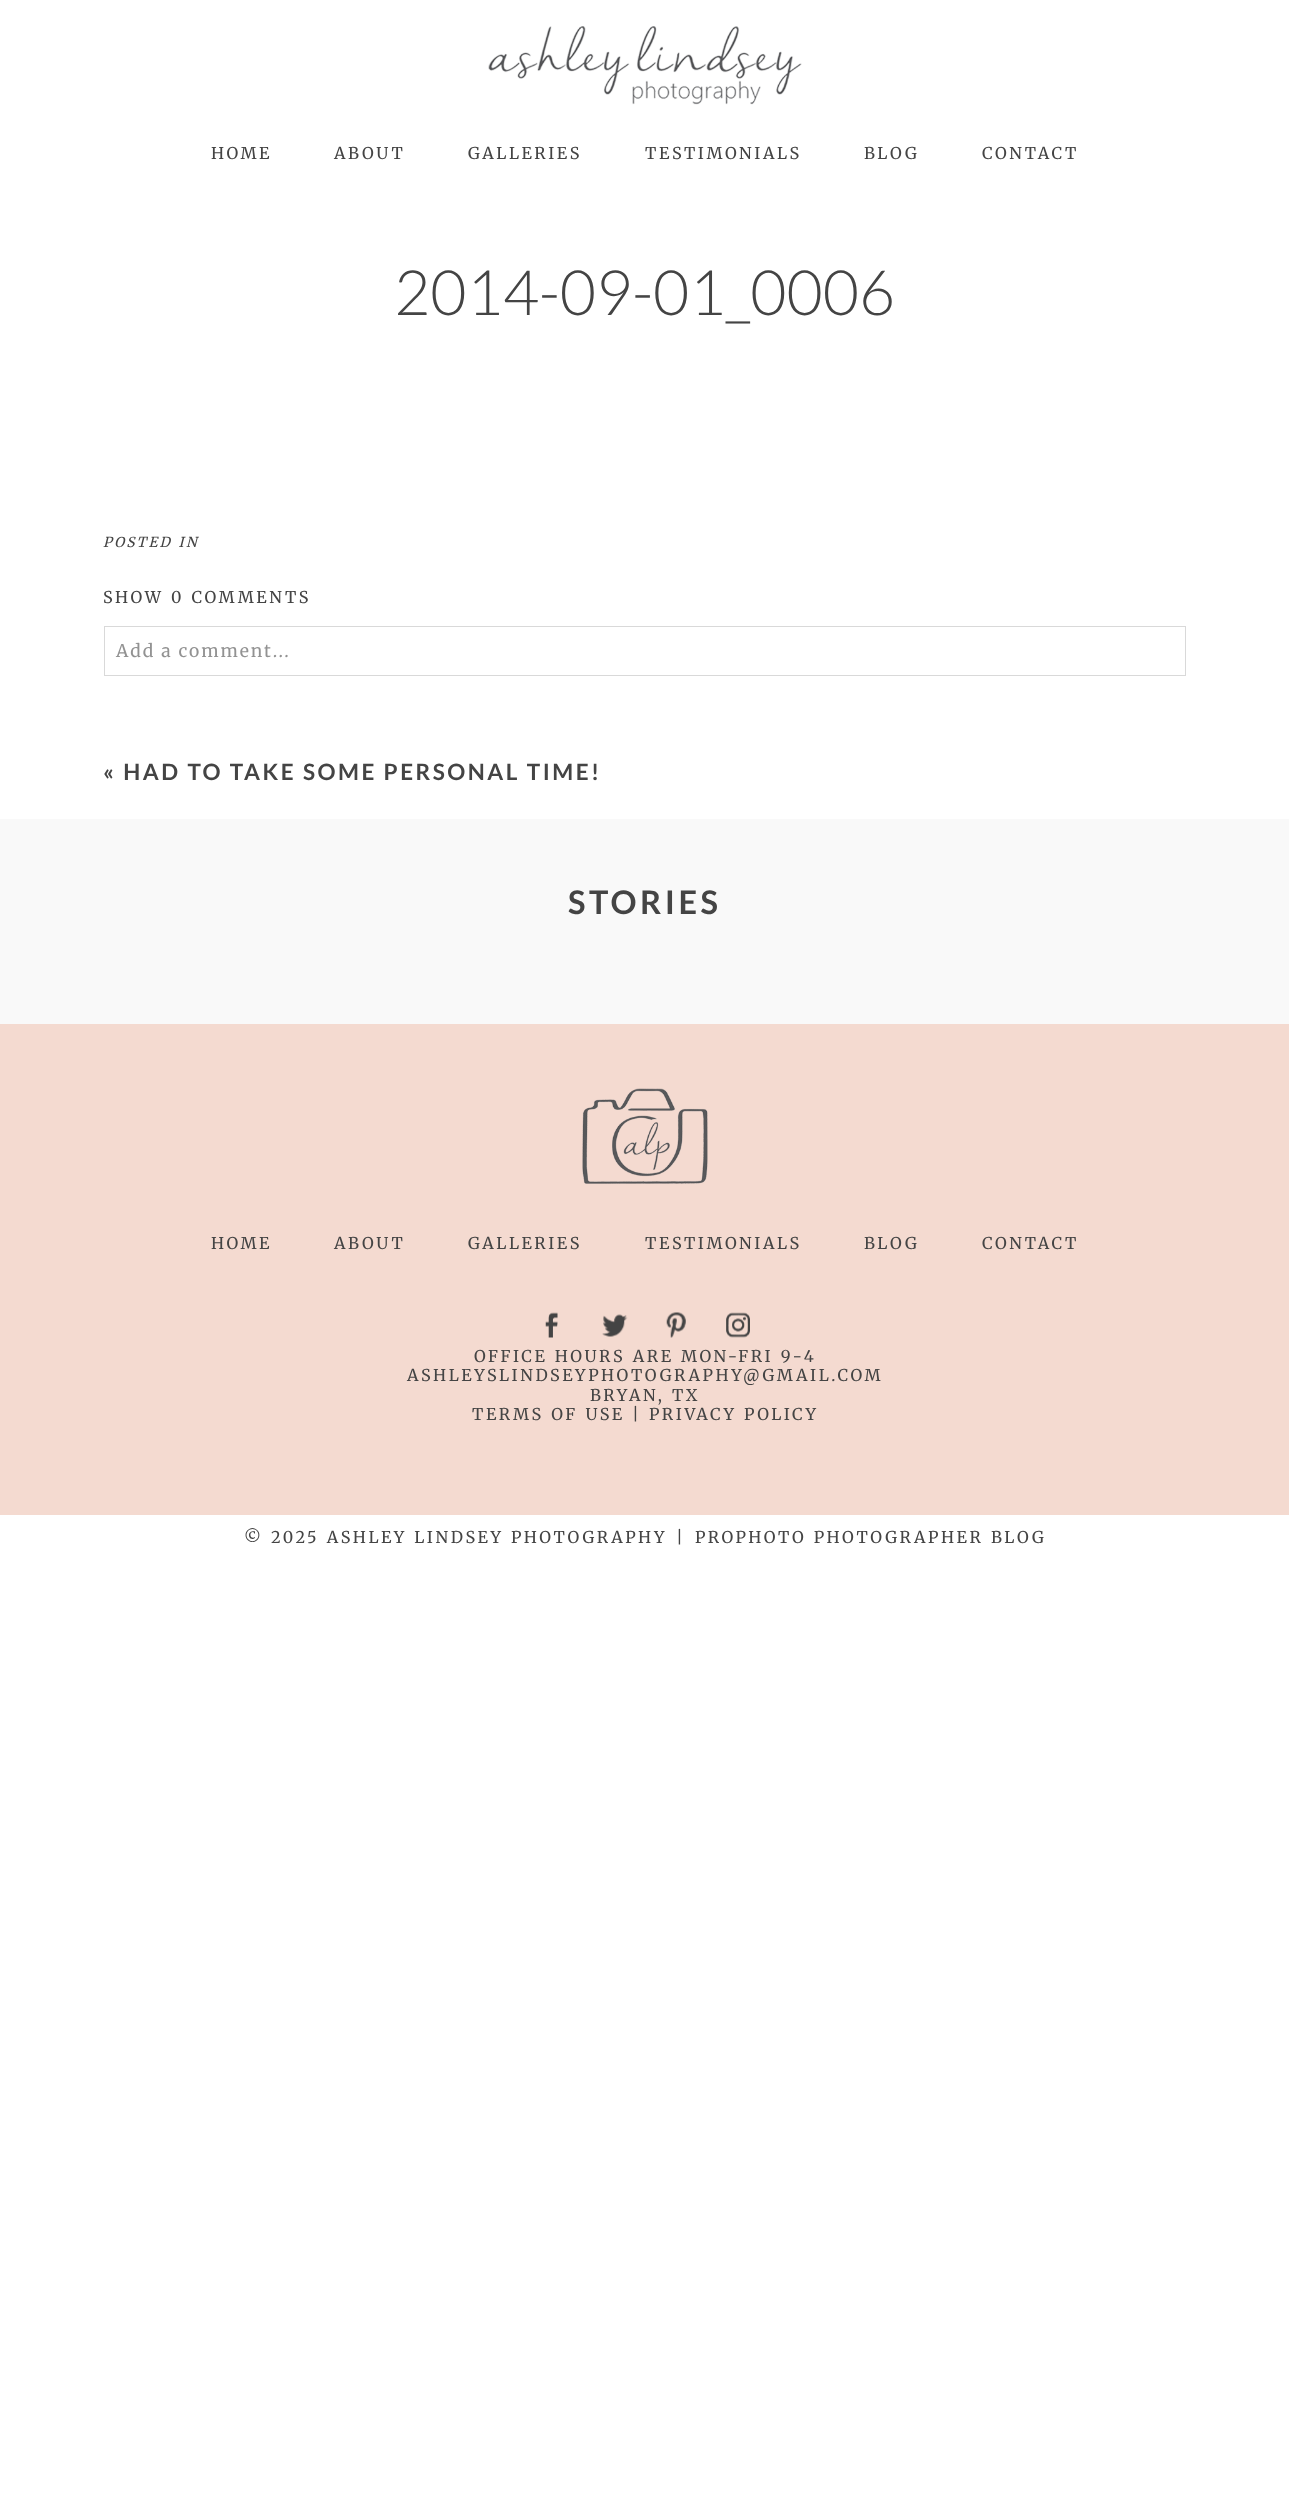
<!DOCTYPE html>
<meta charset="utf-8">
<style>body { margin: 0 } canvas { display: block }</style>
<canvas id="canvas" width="1289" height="2499"></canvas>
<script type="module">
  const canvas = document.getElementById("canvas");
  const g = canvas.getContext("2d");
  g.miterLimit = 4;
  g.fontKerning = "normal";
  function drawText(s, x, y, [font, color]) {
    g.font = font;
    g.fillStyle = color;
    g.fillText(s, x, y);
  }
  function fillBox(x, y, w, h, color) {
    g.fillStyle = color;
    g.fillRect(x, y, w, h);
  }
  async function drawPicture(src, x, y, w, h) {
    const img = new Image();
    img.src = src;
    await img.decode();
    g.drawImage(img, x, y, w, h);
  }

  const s1 = ["300 16.25px Merriweather", "#444444"];
  const s2 = ["300 62.5px Lato", "#444444"];
  const s3 = ["italic 300 13.75px Merriweather", "#444444"];
  const s4 = ["300 17.5px Merriweather", "#929292"];
  const s5 = ["bold 22.5px Lato", "#444444"];
  const s6 = ["bold 32.5px Lato", "#444444"];

  fillBox(0, 0, 1289, 2499, "#FFFFFF");
  await drawPicture("pic1.png", 488, 26, 314, 79);
  g.letterSpacing = "2.6px";
  drawText("HOME", 211, 159, s1);
  drawText("ABOUT", 334, 159, s1);
  drawText("GALLERIES", 468, 159, s1);
  drawText("TESTIMONIALS", 645, 159, s1);
  drawText("BLOG", 864, 159, s1);
  drawText("CONTACT", 982, 159, s1);
  g.letterSpacing = "0px";
  drawText("2014-09-01_0006", 394, 315, s2);
  g.letterSpacing = "2.25px";
  g.wordSpacing = "1px";
  drawText("POSTED IN", 103, 547, s3);
  g.letterSpacing = "2.6px";
  g.wordSpacing = "0px";
  drawText("SHOW", 103, 603, s1);
  g.wordSpacing = "1px";
  drawText("0 COMMENTS", 171, 603, s1);
  g.strokeStyle = "#D9D9D9";
  g.strokeRect(104.5, 626.5, 1081, 49);
  g.letterSpacing = "1.9px";
  g.wordSpacing = "0px";
  drawText("Add a comment...", 116, 657, s4);
  g.letterSpacing = "2.5px";
  drawText("« HAD TO TAKE SOME PERSONAL TIME!", 103, 780, s5);
  fillBox(0, 819, 1289, 205, "#F9F9F9");
  g.letterSpacing = "3.5px";
  drawText("STORIES", 568, 914, s6);
  fillBox(0, 1024, 1289, 491, "#F4DAD0");
  await drawPicture("pic2.png", 582, 1088, 126, 96);
  g.letterSpacing = "2.6px";
  drawText("HOME", 211, 1249, s1);
  drawText("ABOUT", 334, 1249, s1);
  drawText("GALLERIES", 468, 1249, s1);
  drawText("TESTIMONIALS", 645, 1249, s1);
  drawText("BLOG", 864, 1249, s1);
  drawText("CONTACT", 982, 1249, s1);
  await drawPicture("pic3.png", 545, 1312, 13, 26);
  await drawPicture("pic4.png", 602, 1314, 26, 23);
  await drawPicture("pic5.png", 666, 1312, 20, 26);
  await drawPicture("pic6.png", 726, 1312, 24, 26);
  g.wordSpacing = "1px";
  drawText("OFFICE HOURS ARE MON-FRI 9-4", 474, 1362, s1);
  g.wordSpacing = "0px";
  drawText("ASHLEYSLINDSEYPHOTOGRAPHY", 407, 1381, s1);
  drawText("@GMAIL.COM", 743, 1381, s1);
  g.wordSpacing = "1px";
  drawText("BRYAN, TX", 590, 1401, s1);
  drawText("TERMS OF USE", 472, 1420, s1);
  g.wordSpacing = "0px";
  drawText("|", 632, 1420, s1);
  g.wordSpacing = "1px";
  drawText("PRIVACY POLICY", 649, 1420, s1);
  drawText("© 2025 ASHLEY LINDSEY PHOTOGRAPHY", 244, 1543, s1);
  g.wordSpacing = "0px";
  drawText("|", 676, 1543, s1);
  g.wordSpacing = "1px";
  drawText("PROPHOTO PHOTOGRAPHER BLOG", 695, 1543, s1);
</script>
